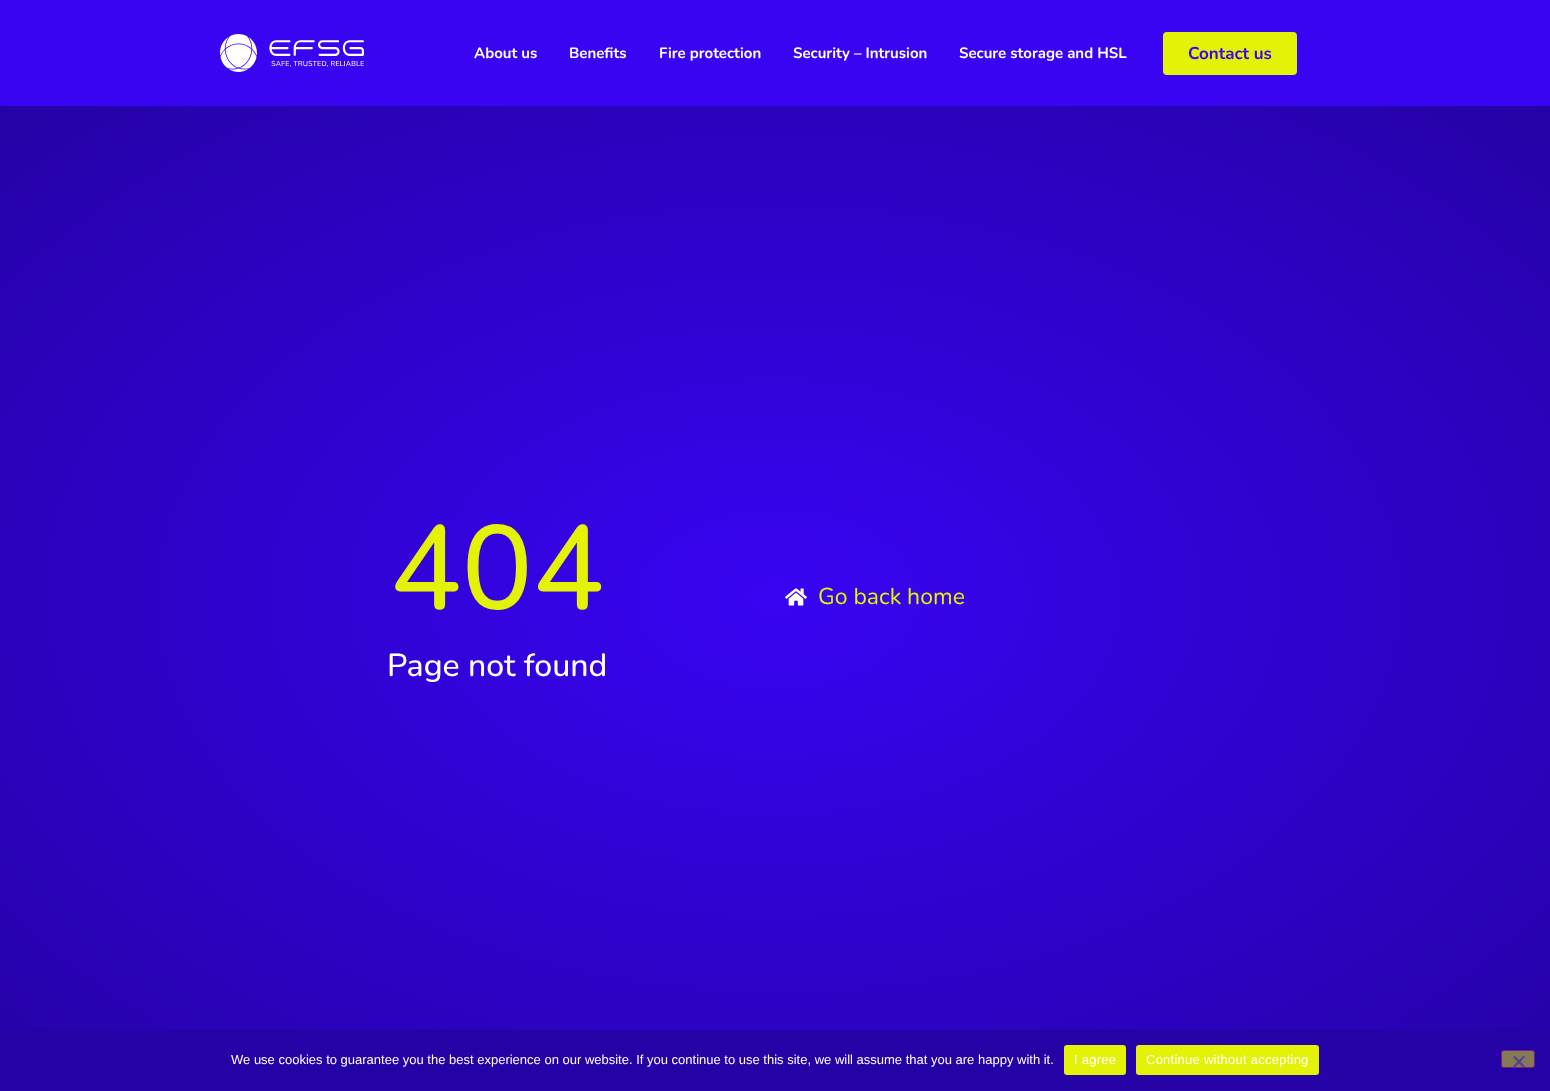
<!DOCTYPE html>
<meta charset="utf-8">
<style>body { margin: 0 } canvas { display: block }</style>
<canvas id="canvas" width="1550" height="1091"></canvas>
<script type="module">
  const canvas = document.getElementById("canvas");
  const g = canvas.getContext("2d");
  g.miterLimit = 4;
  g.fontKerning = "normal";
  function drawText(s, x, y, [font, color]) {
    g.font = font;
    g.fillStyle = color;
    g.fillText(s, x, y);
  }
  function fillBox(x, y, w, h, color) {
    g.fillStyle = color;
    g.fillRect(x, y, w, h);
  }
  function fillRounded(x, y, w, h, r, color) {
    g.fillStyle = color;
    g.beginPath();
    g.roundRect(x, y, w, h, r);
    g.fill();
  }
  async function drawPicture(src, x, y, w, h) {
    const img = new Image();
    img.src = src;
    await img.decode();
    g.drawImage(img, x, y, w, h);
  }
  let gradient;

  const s1 = ["bold 15px Nunito", "#FFFFFF"];
  const s2 = ["bold 17px Nunito", "#3804F2"];
  const s3 = ["500 119px Nunito", "#E4F207"];
  const s4 = ["500 32px Nunito", "#FFFFFF"];
  const s5 = ["23px Nunito", "#E4F207"];
  const s6 = ["13px Liberation Sans", "#FFFFFF"];

  fillBox(0, 0, 1550, 1091, "#3804F2");
  await drawPicture("pic1.png", 220, 34, 144, 38);
  drawText("About us", 474, 58, s1);
  drawText("Benefits", 569, 58, s1);
  drawText("Fire protection", 659, 58, s1);
  drawText("Security – Intrusion", 793, 58, s1);
  drawText("Secure storage and HSL", 959, 58, s1);
  fillRounded(1163, 32, 134, 43, 4, "#E4F207");
  drawText("Contact us", 1188, 59, s2);
  gradient = g.createRadialGradient(775, 942.81, 0, 775, 942.81, 1096);
  gradient.addColorStop(0, "#3804F2");
  gradient.addColorStop(1, "#2502A6");
  g.fillStyle = gradient;
  g.beginPath();
  g.rect(0, 106, 1550, 924);
  g.save();
  g.clip();
  g.scale(1, 694 / 1096);
  g.fillRect(0, 0, 1550, 1723);
  g.restore();
  drawText("404", 390, 609, s3);
  drawText("Page not found", 387, 676, s4);
  await drawPicture("pic2.png", 785, 588, 22, 18);
  drawText("Go back home", 818, 604, s5);
  fillBox(0, 1030, 1550, 61, "#2502A6");
  drawText("We use cookies to guarantee you the best experience on our website. If you continue to use this site, we will assume that you are happy with it.", 231, 1064, s6);
  fillRounded(1064, 1045, 62, 30, 3, "#E4F207");
  g.letterSpacing = "0.25px";
  drawText("I agree", 1074, 1064, s6);
  fillRounded(1136, 1045, 183, 30, 3, "#E4F207");
  drawText("Continue without accepting", 1146, 1064, s6);
  g.fillStyle = "#857A57";
  g.beginPath();
  g.roundRect(1501.5, 1050.5, 33, 17, 2.5);
  g.fill();
  g.strokeStyle = "#791B86";
  g.stroke();
  g.fillStyle = "#534193";
  g.beginPath();
  g.moveTo(1523.5, 1055.5);
  g.lineTo(1525, 1057);
  g.lineTo(1514.5, 1068);
  g.lineTo(1513, 1066.5);
  g.closePath();
  g.fill();
  g.beginPath();
  g.moveTo(1513, 1057);
  g.lineTo(1514.5, 1055.5);
  g.lineTo(1525, 1066.5);
  g.lineTo(1523.5, 1068);
  g.closePath();
  g.fill();
</script>
